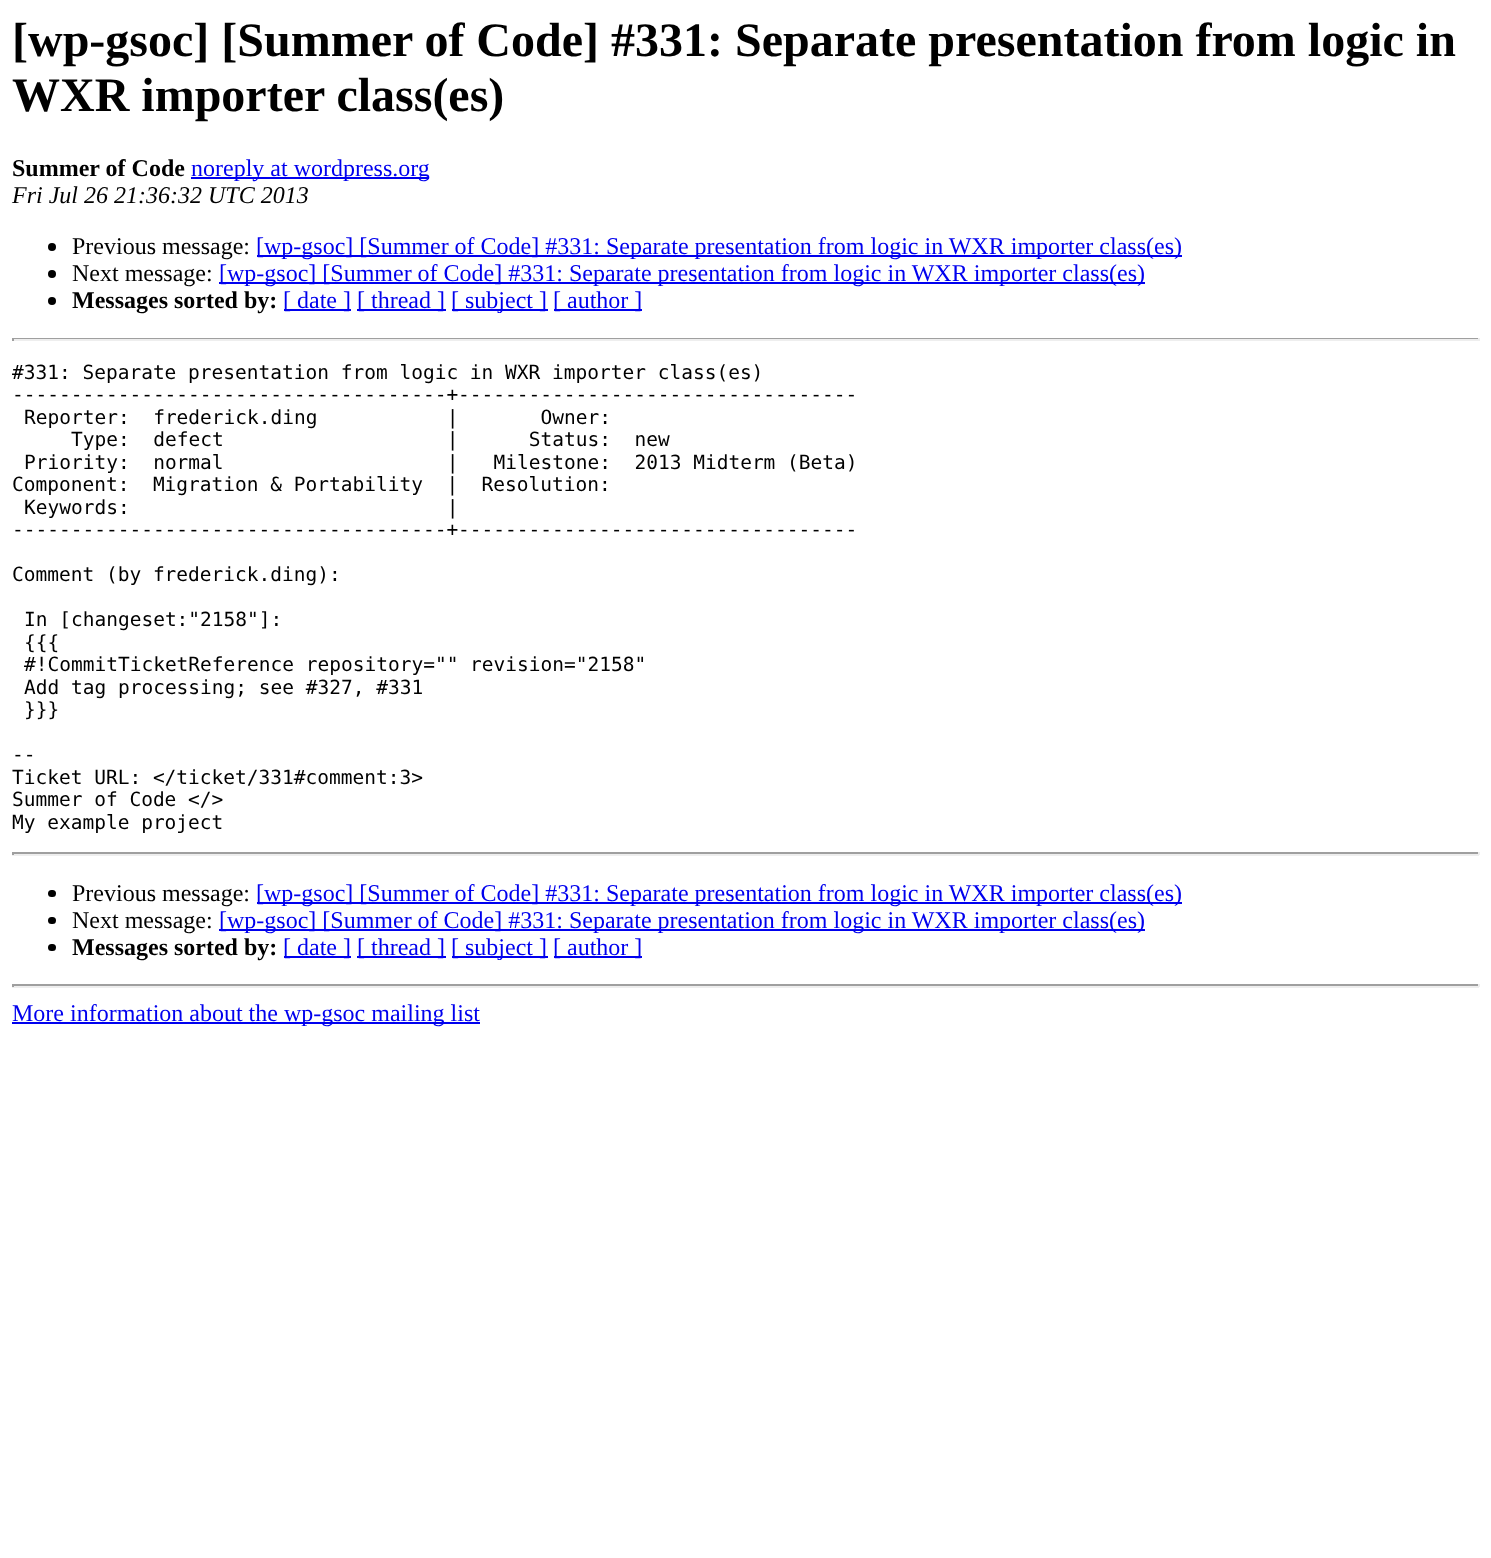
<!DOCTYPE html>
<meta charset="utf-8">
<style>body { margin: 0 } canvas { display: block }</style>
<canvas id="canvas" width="1491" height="1558"></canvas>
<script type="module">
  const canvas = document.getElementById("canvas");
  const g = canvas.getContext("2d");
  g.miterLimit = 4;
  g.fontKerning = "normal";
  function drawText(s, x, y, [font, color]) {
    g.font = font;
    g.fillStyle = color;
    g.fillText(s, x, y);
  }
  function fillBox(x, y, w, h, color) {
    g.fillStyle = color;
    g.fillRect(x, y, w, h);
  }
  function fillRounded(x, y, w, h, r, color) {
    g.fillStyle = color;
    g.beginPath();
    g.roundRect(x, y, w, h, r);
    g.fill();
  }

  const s1 = ["bold 48px Liberation Serif", "#000000"];
  const s2 = ["bold 24px Liberation Serif", "#000000"];
  const s3 = ["24px Liberation Serif", "#0000EE"];
  const s4 = ["italic 24px Liberation Serif", "#000000"];
  const s5 = ["24px Liberation Serif", "#000000"];
  const s6 = ["19.5px DejaVu Sans Mono", "#000000"];

  fillBox(0, 0, 1491, 1558, "#FFFFFF");
  drawText("[wp-gsoc] [Summer of Code] #331: Separate presentation from logic in", 12, 56, s1);
  drawText("WXR importer class(es)", 12, 111, s1);
  drawText("Summer of Code", 12, 176, s2);
  fillBox(191, 177, 238, 2, "#0000EE");
  drawText("noreply at wordpress.org", 191, 176, s3);
  drawText("Fri Jul 26 21:36:32 UTC 2013", 12, 203, s4);
  g.beginPath();
  g.arc(52, 247, 4, 0, Math.PI * 2);
  g.fill();
  drawText("Previous message:", 72, 254, s5);
  fillBox(257, 255, 925, 2, "#0000EE");
  drawText("[wp-gsoc] [Summer of Code] #331: Separate presentation from logic in WXR importer class(es)", 256, 254, s3);
  g.fillStyle = "#000000";
  g.beginPath();
  g.arc(52, 274, 4, 0, Math.PI * 2);
  g.fill();
  drawText("Next message:", 72, 281, s5);
  fillBox(219, 282, 926, 2, "#0000EE");
  drawText("[wp-gsoc] [Summer of Code] #331: Separate presentation from logic in WXR importer class(es)", 219, 281, s3);
  g.fillStyle = "#000000";
  g.beginPath();
  g.arc(52, 301, 4, 0, Math.PI * 2);
  g.fill();
  drawText("Messages sorted by:", 72, 308, s2);
  fillBox(284, 309, 67, 2, "#0000EE");
  drawText("[ date ]", 283, 308, s3);
  fillBox(357, 309, 89, 2, "#0000EE");
  drawText("[ thread ]", 357, 308, s3);
  fillBox(452, 309, 96, 2, "#0000EE");
  drawText("[ subject ]", 451, 308, s3);
  fillBox(554, 309, 88, 2, "#0000EE");
  drawText("[ author ]", 553, 308, s3);
  fillBox(12, 338, 1467, 1, "#9F9F9F");
  fillBox(1478, 338, 2, 3, "#EEEEEE");
  fillBox(12, 339, 1467, 2, "#EEEEEE");
  fillBox(12, 338, 2, 3, "#9F9F9F");
  drawText("#331: Separate presentation from logic in WXR importer class(es)", 12, 379, s6);
  drawText("-------------------------------------+----------------------------------", 12, 401, s6);
  drawText("Reporter:  frederick.ding           |       Owner:", 24, 424, s6);
  drawText("Type:  defect                   |      Status:  new", 71, 446, s6);
  drawText("Priority:  normal                   |   Milestone:  2013 Midterm (Beta)", 24, 469, s6);
  drawText("Component:  Migration & Portability  |  Resolution:", 12, 491, s6);
  drawText("Keywords:                           |", 24, 514, s6);
  drawText("-------------------------------------+----------------------------------", 12, 536, s6);
  drawText("Comment (by frederick.ding):", 12, 581, s6);
  drawText("In [changeset:\"2158\"]:", 24, 626, s6);
  drawText("{{{", 24, 649, s6);
  drawText("#!CommitTicketReference repository=\"\" revision=\"2158\"", 24, 671, s6);
  drawText("Add tag processing; see #327, #331", 24, 694, s6);
  drawText("}}}", 24, 716, s6);
  drawText("--", 12, 761, s6);
  drawText("Ticket URL: <\/ticket/331#comment:3>", 12, 784, s6);
  drawText("Summer of Code <\/>", 12, 806, s6);
  drawText("My example project", 12, 829, s6);
  fillBox(12, 852, 1467, 2, "#9F9F9F");
  fillBox(1478, 852, 2, 3, "#EEEEEE");
  fillBox(12, 854, 1467, 2, "#EEEEEE");
  fillBox(12, 852, 2, 3, "#9F9F9F");
  fillRounded(48, 890, 8, 7, 3.5, "#000000");
  drawText("Previous message:", 72, 901, s5);
  fillBox(257, 902, 925, 2, "#0000EE");
  drawText("[wp-gsoc] [Summer of Code] #331: Separate presentation from logic in WXR importer class(es)", 256, 901, s3);
  fillRounded(48, 917, 8, 7, 3.5, "#000000");
  drawText("Next message:", 72, 928, s5);
  fillBox(219, 929, 926, 2, "#0000EE");
  drawText("[wp-gsoc] [Summer of Code] #331: Separate presentation from logic in WXR importer class(es)", 219, 928, s3);
  fillRounded(48, 944, 8, 7, 3.5, "#000000");
  drawText("Messages sorted by:", 72, 955, s2);
  fillBox(284, 956, 67, 2, "#0000EE");
  drawText("[ date ]", 283, 955, s3);
  fillBox(357, 956, 89, 2, "#0000EE");
  drawText("[ thread ]", 357, 955, s3);
  fillBox(452, 956, 96, 2, "#0000EE");
  drawText("[ subject ]", 451, 955, s3);
  fillBox(554, 956, 88, 2, "#0000EE");
  drawText("[ author ]", 553, 955, s3);
  fillBox(12, 984, 1467, 2, "#9F9F9F");
  fillBox(1478, 984, 2, 3, "#EEEEEE");
  fillBox(12, 986, 1467, 2, "#EEEEEE");
  fillBox(12, 984, 2, 3, "#9F9F9F");
  fillBox(12, 1022, 468, 2, "#0000EE");
  drawText("More information about the wp-gsoc mailing list", 12, 1021, s3);
</script>
